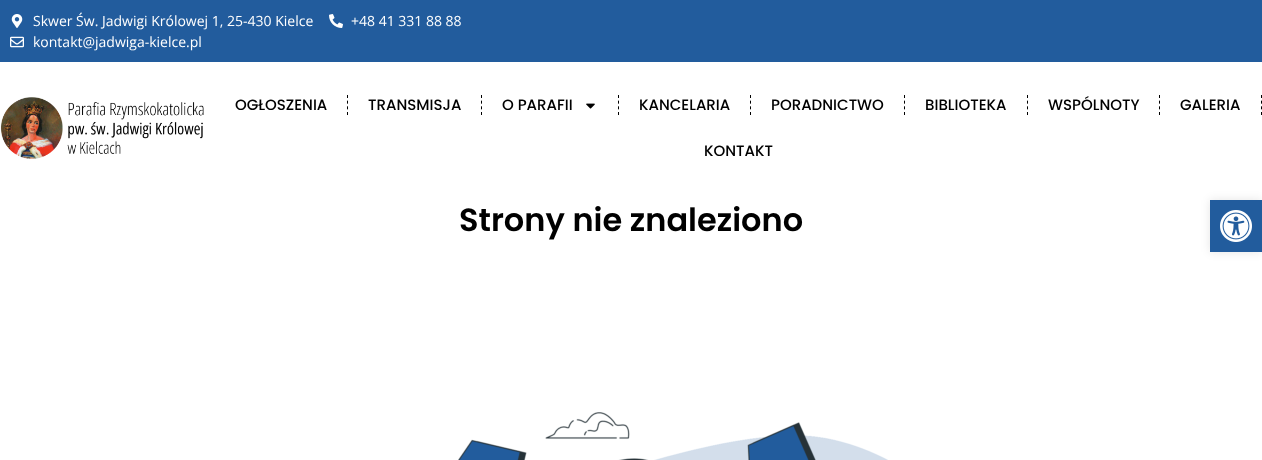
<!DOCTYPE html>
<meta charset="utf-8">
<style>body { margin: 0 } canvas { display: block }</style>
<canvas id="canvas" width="1262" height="460"></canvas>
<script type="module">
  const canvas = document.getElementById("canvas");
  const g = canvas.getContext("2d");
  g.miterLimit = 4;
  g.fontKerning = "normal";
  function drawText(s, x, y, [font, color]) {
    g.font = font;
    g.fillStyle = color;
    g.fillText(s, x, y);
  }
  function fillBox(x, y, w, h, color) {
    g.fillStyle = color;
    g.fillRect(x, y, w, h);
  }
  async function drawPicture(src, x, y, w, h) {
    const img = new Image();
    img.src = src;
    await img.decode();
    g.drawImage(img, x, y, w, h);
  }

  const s1 = ["14px Open Sans", "#FFFFFF"];
  const s2 = ["500 15px Poppins", "#000000"];
  const s3 = ["600 32px Poppins", "#000000"];

  fillBox(0, 0, 1262, 460, "#FFFFFF");
  fillBox(0, 0, 1262, 62, "#225C9D");
  await drawPicture("pic1.png", 11, 14, 12, 14);
  drawText("Skwer Św. Jadwigi Królowej 1, 25-430 Kielce", 33, 26, s1);
  await drawPicture("pic2.png", 329, 14, 14, 14);
  drawText("+48 41 331 88 88", 351, 26, s1);
  await drawPicture("pic3.png", 10, 36, 14, 12);
  drawText("kontakt@jadwiga-kielce.pl", 33, 47, s1);
  await drawPicture("pic4.png", 0, 97, 204, 62);
  drawText("OGŁOSZENIA", 235, 110, s2);
  g.beginPath();
  g.moveTo(347.5, 95);
  g.lineTo(347.5, 115);
  g.strokeStyle = "#000000";
  g.setLineDash([3, 2.67]);
  g.stroke();
  drawText("TRANSMISJA", 368, 110, s2);
  g.beginPath();
  g.moveTo(481.5, 95);
  g.lineTo(481.5, 115);
  g.stroke();
  drawText("O PARAFII", 502, 110, s2);
  await drawPicture("pic5.png", 586, 103, 9, 6);
  g.beginPath();
  g.moveTo(618.5, 95);
  g.lineTo(618.5, 115);
  g.stroke();
  drawText("KANCELARIA", 639, 110, s2);
  g.beginPath();
  g.moveTo(750.5, 95);
  g.lineTo(750.5, 115);
  g.stroke();
  drawText("PORADNICTWO", 771, 110, s2);
  g.beginPath();
  g.moveTo(904.5, 95);
  g.lineTo(904.5, 115);
  g.stroke();
  drawText("BIBLIOTEKA", 925, 110, s2);
  g.beginPath();
  g.moveTo(1027.5, 95);
  g.lineTo(1027.5, 115);
  g.stroke();
  drawText("WSPÓLNOTY", 1048, 110, s2);
  g.beginPath();
  g.moveTo(1159.5, 95);
  g.lineTo(1159.5, 115);
  g.stroke();
  drawText("GALERIA", 1180, 110, s2);
  g.beginPath();
  g.moveTo(1261.5, 95);
  g.lineTo(1261.5, 115);
  g.stroke();
  drawText("KONTAKT", 704, 156, s2);
  drawText("Strony nie znaleziono", 459, 231, s3);
  await drawPicture("pic6.png", 458, 412, 430, 48);
  g.fillStyle = "rgba(0, 0, 0, 0.1)";
  g.filter = "blur(5px)";
  g.beginPath();
  g.rect(1210, 200, 52, 52);
  g.fill();
  g.filter = "none";
  fillBox(1210, 200, 52, 52, "#225C9D");
  await drawPicture("pic7.png", 1220, 210, 32, 32);
</script>
